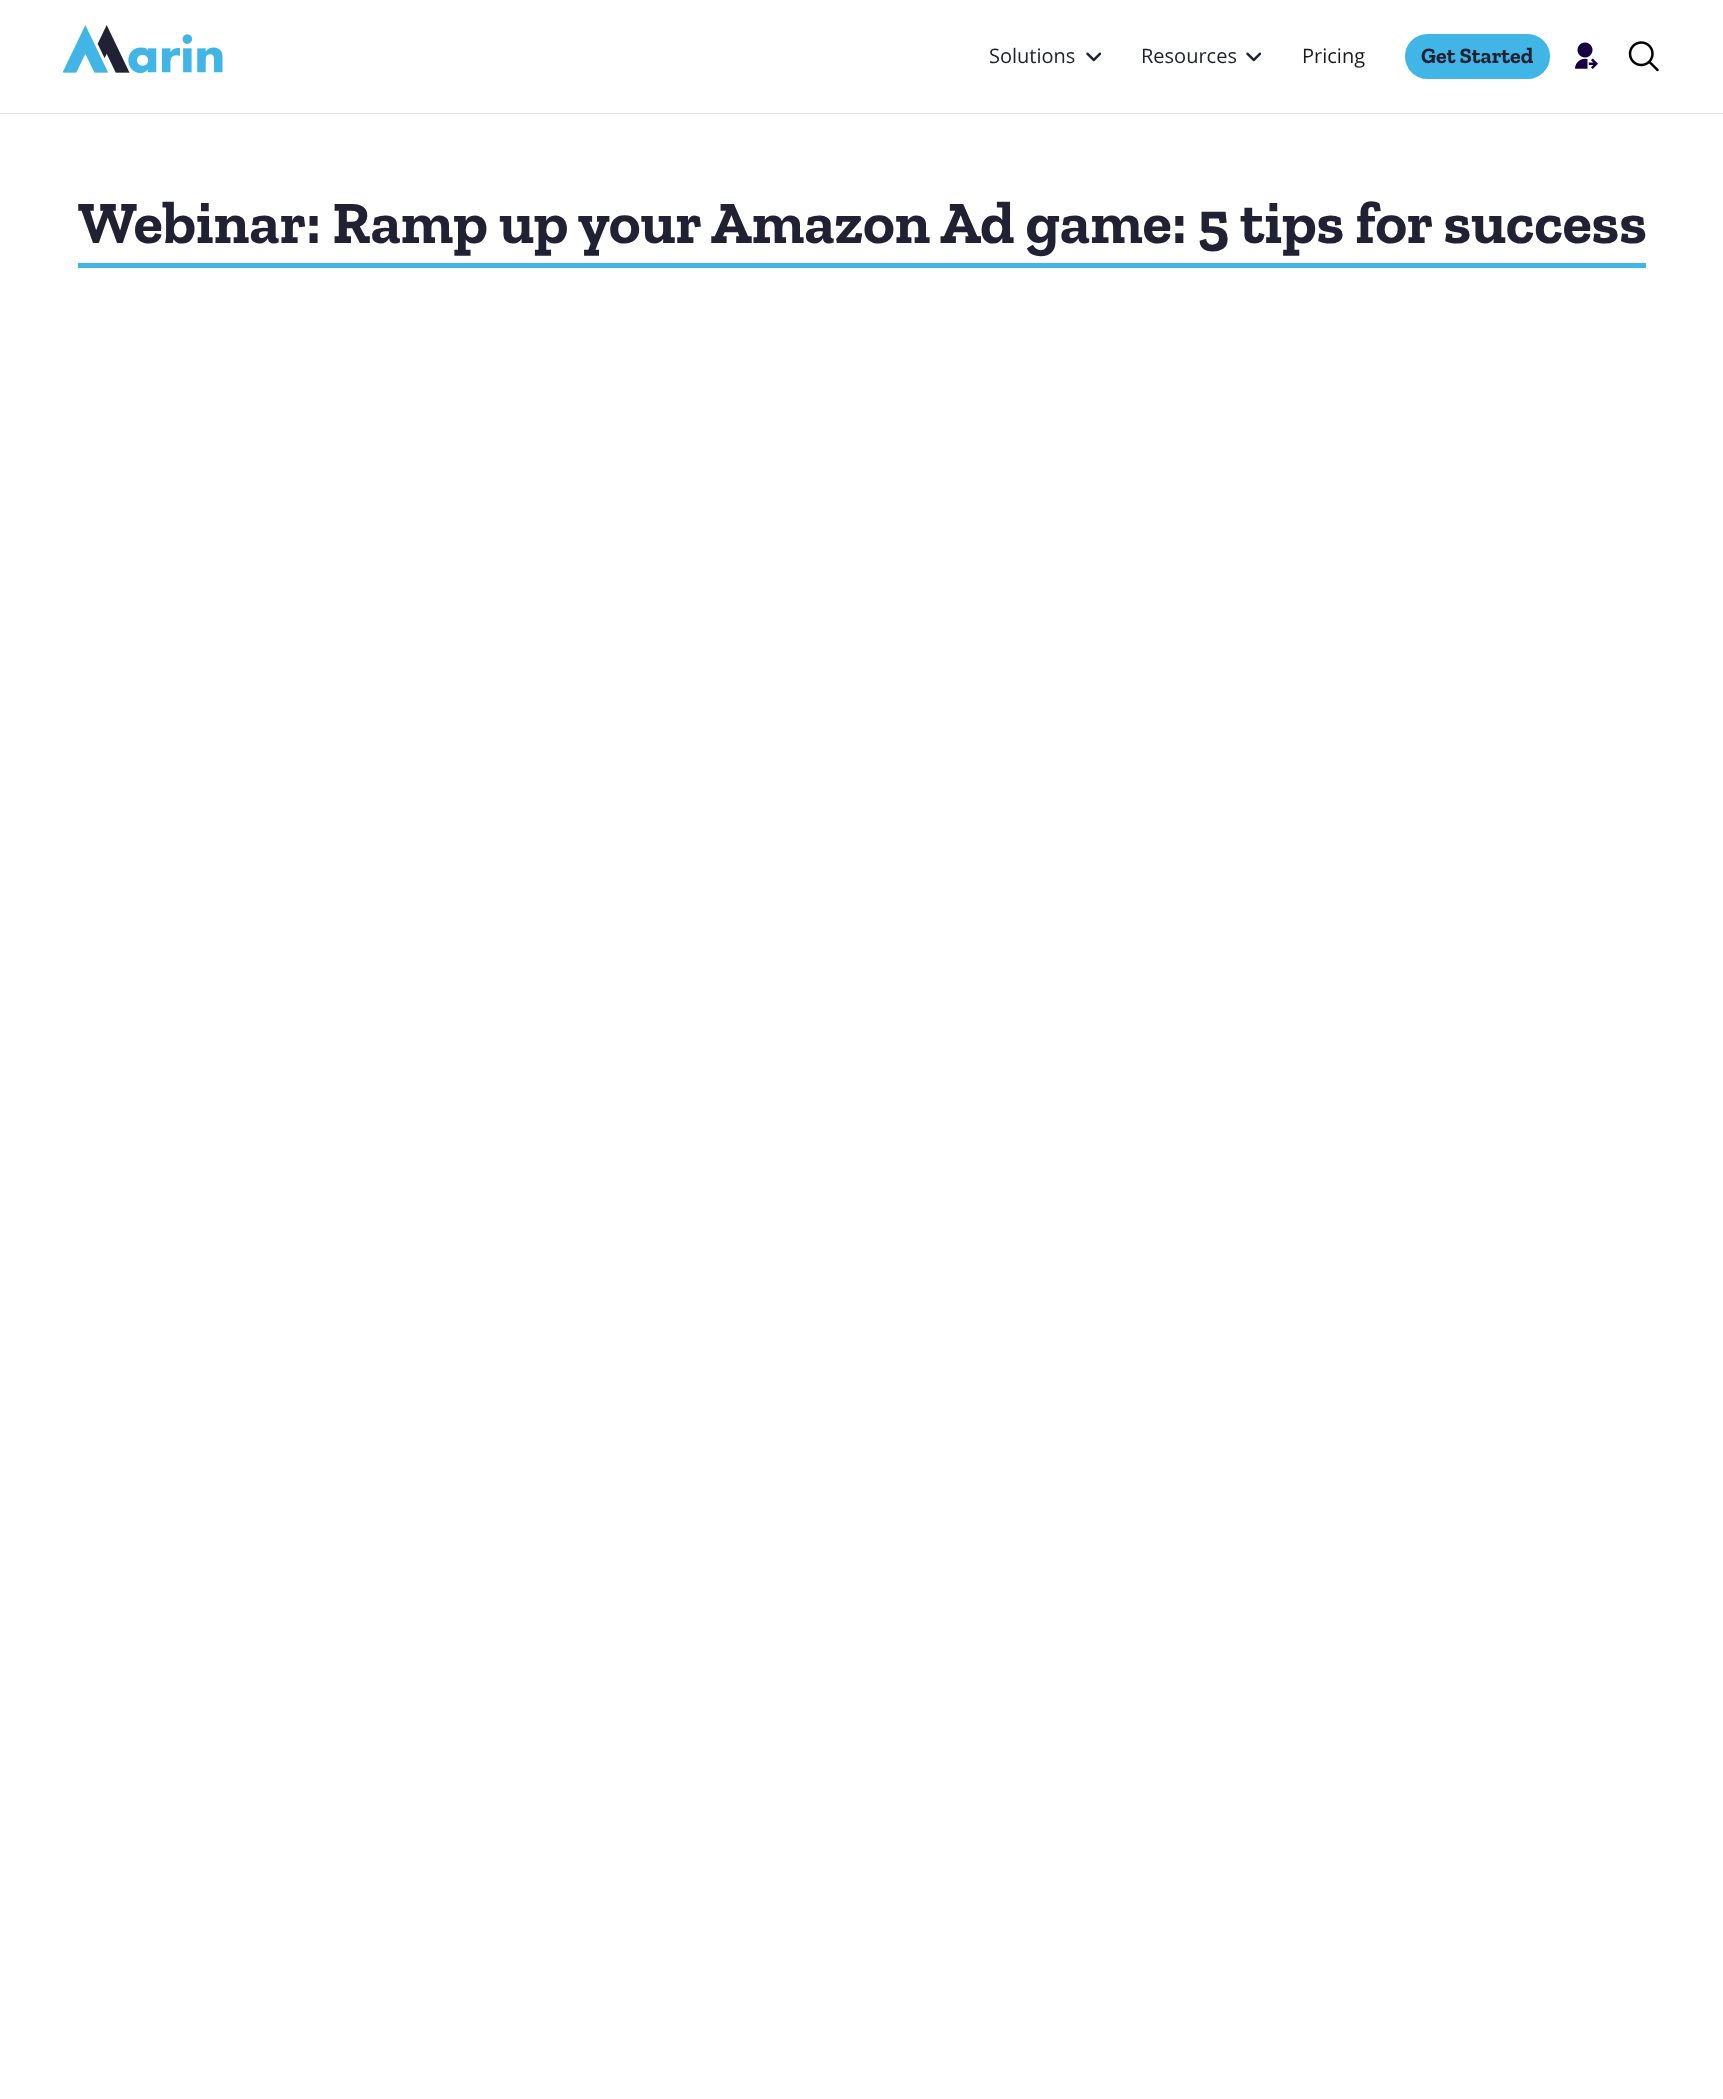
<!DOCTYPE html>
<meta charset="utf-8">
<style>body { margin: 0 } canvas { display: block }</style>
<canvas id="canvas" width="1723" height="2099"></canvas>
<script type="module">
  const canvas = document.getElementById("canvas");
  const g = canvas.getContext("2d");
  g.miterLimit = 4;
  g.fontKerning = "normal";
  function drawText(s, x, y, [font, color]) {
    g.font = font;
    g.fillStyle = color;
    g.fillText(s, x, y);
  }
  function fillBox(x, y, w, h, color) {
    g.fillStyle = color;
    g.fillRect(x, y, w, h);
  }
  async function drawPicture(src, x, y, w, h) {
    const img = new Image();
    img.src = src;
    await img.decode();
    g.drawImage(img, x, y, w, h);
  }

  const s1 = ["20px Open Sans", "#202233"];
  const s2 = ["20px Open Sans", "#1B1B1B"];
  const s3 = ["bold 22px Zilla Slab", "#202233"];
  const s4 = ["bold 60px Zilla Slab", "#202233"];

  fillBox(0, 0, 1723, 2099, "#FFFFFF");
  fillBox(0, 113, 1723, 1, "#E4E4E4");
  await drawPicture("pic1.png", 63, 25, 160, 49);
  drawText("Solutions", 989, 63, s1);
  await drawPicture("pic2.png", 1086, 52, 15, 10);
  drawText("Resources", 1141, 63, s1);
  await drawPicture("pic2.png", 1246, 52, 15, 10);
  drawText("Pricing", 1302, 63, s2);
  g.fillStyle = "#41B6E6";
  g.beginPath();
  g.roundRect(1407, 36, 141, 41, 20.5);
  g.fill();
  g.strokeStyle = "#41B6E6";
  g.lineWidth = 4;
  g.stroke();
  drawText("Get Started", 1421, 63, s3);
  await drawPicture("pic3.png", 1575, 42, 23, 27);
  await drawPicture("pic4.png", 1628, 41, 31, 31);
  fillBox(78, 263, 1568, 5, "#41B6E6");
  drawText("Webinar: Ramp up your Amazon Ad game: 5 tips for success", 78, 243, s4);
</script>
